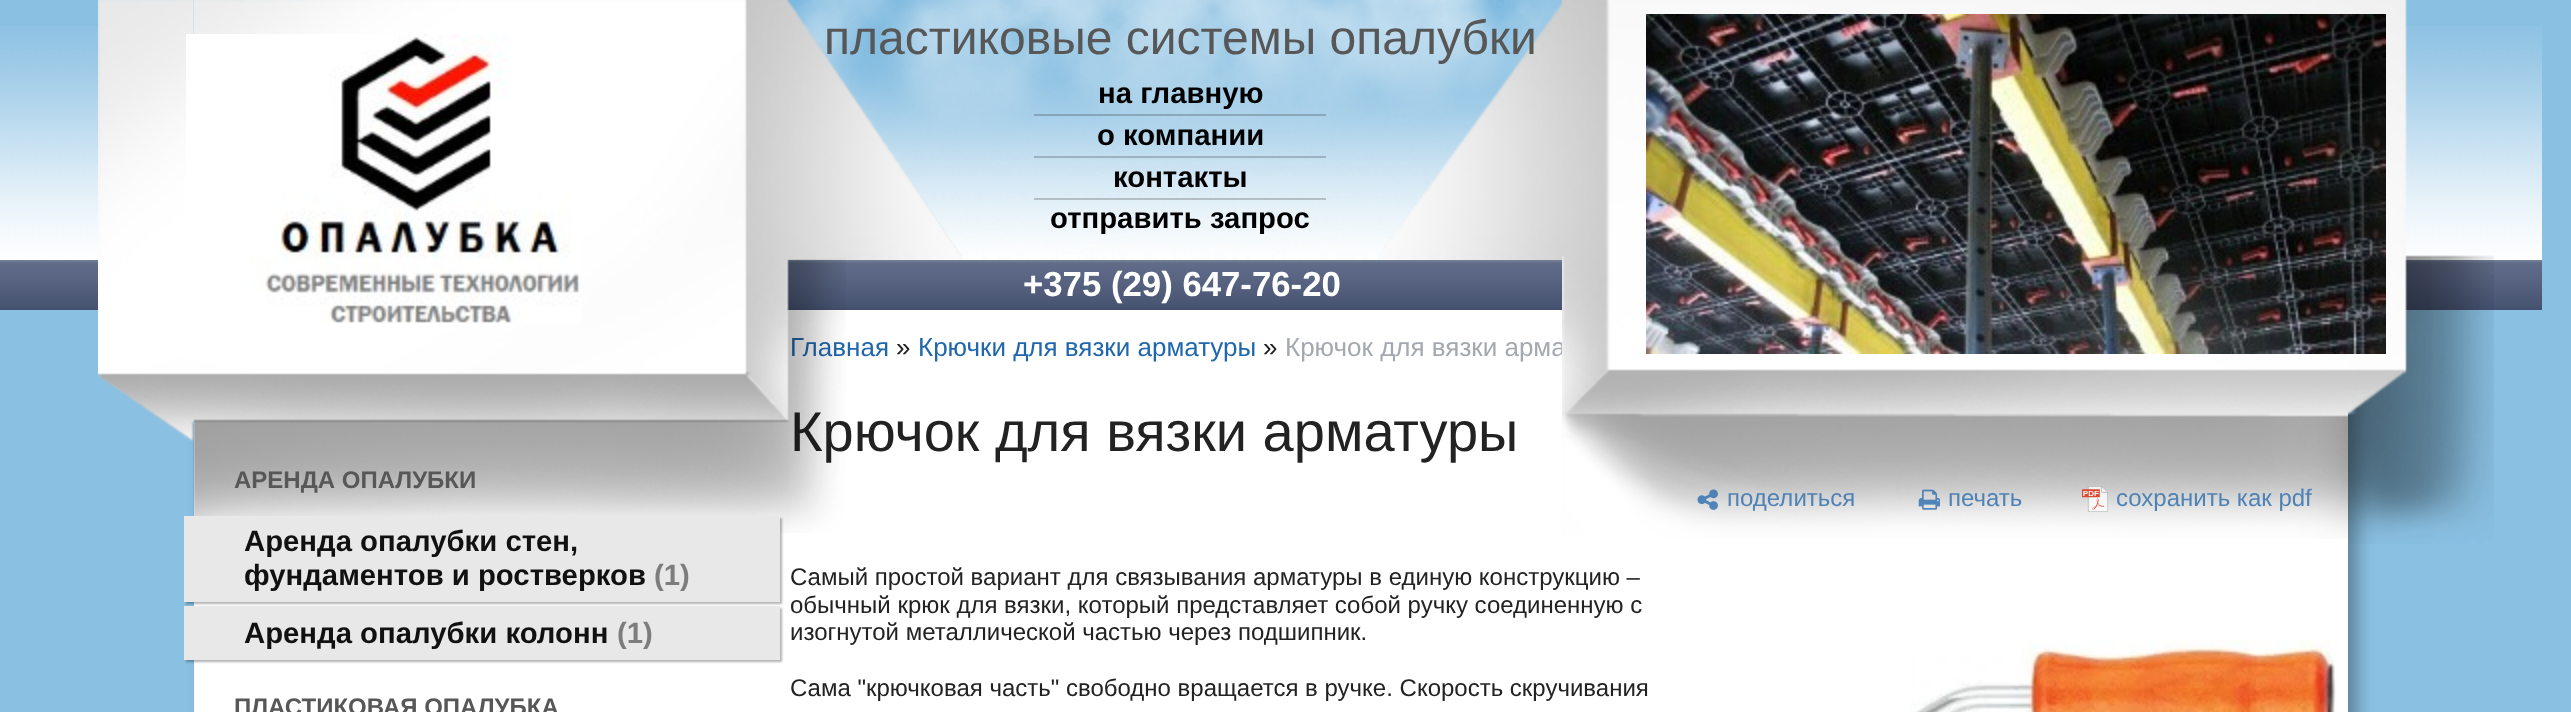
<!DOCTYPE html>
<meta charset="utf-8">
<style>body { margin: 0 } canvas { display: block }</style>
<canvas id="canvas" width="2571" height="712"></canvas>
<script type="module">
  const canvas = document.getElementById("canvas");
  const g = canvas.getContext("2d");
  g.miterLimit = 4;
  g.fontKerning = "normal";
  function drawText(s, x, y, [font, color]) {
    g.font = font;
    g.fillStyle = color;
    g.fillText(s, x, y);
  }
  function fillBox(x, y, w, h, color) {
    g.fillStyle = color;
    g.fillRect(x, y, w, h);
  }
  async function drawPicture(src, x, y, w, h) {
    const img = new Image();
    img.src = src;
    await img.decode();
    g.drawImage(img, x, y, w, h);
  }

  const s1 = ["26px Liberation Sans", "#2167AD"];
  const s2 = ["56px Liberation Sans", "#222222"];
  const s3 = ["26px Liberation Sans", "#A4A8AF"];
  const s4 = ["48px Liberation Sans", "#575757"];
  const s5 = ["bold 29.3px Liberation Sans", "#000000"];
  const s6 = ["bold 34.75px Liberation Sans", "#FFFFFF"];
  const s7 = ["bold 24px Liberation Sans", "#575757"];
  const s8 = ["bold 29.3px Liberation Sans", "#111111"];
  const s9 = ["bold 29.3px Liberation Sans", "#7D7D7D"];
  const s10 = ["26px Liberation Sans", "#222222"];
  const s11 = ["24px Liberation Sans", "#4F83B6"];
  const s12 = ["24px Liberation Sans", "#222222"];

  fillBox(0, 0, 2571, 712, "#8AC0E2");
  await drawPicture("pic1.png", 0, 26, 2542, 234);
  await drawPicture("pic2.png", 194, 0, 1368, 260);
  await drawPicture("pic8.png", 0, 260, 100, 50);
  await drawPicture("pic9.png", 787, 260, 775, 50);
  g.fillStyle = "rgba(0, 0, 0, 0.3)";
  g.filter = "blur(8px)";
  g.beginPath();
  g.rect(204, 320, 2154, 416);
  g.fill();
  g.filter = "none";
  fillBox(194, 310, 2154, 402, "#FFFFFF");
  drawText("Главная", 790, 356, s1);
  drawText("Крючок для вязки арматуры", 790, 451, s2);
  await drawPicture("pic3.png", 98, 0, 748, 533);
  drawText("Крючок для вязки арма", 1285, 356, s3);
  await drawPicture("pic4.png", 1562, 0, 786, 539);
  await drawPicture("pic5.png", 186, 34, 395, 289);
  drawText("пластиковые системы опалубки", 824, 54, s4);
  fillBox(1034, 114, 292, 2, "rgba(0, 0, 0, 0.2)");
  drawText("на главную", 1098, 103, s5);
  fillBox(1034, 156, 292, 2, "#9DB2C0");
  drawText("о компании", 1097, 145, s5);
  fillBox(1034, 198, 292, 2, "rgba(0, 0, 0, 0.2)");
  drawText("контакты", 1113, 187, s5);
  drawText("отправить запрос", 1050, 228, s5);
  await drawPicture("pic10.png", 2405, 260, 137, 50);
  await drawPicture("pic7.png", 2348, 0, 146, 544);
  await drawPicture("pic6.png", 1646, 14, 740, 340);
  drawText("+375 (29) 647-76-20", 1023, 296, s6);
  drawText("АРЕНДА ОПАЛУБКИ", 234, 488, s7);
  g.fillStyle = "rgba(0, 0, 0, 0.3)";
  g.filter = "blur(1px)";
  g.beginPath();
  g.rect(186, 518, 596, 86);
  g.fill();
  g.filter = "none";
  fillBox(184, 516, 596, 86, "#E8E8E8");
  drawText("Аренда опалубки стен,", 244, 551, s8);
  drawText("фундаментов и ростверков", 244, 585, s8);
  drawText("(1)", 654, 585, s9);
  g.fillStyle = "rgba(0, 0, 0, 0.3)";
  g.filter = "blur(1px)";
  g.beginPath();
  g.rect(186, 608, 596, 54);
  g.fill();
  g.filter = "none";
  fillBox(184, 606, 596, 54, "#E8E8E8");
  drawText("Аренда опалубки колонн", 244, 643, s8);
  drawText("(1)", 617, 643, s9);
  drawText("ПЛАСТИКОВАЯ ОПАЛУБКА", 234, 715, s7);
  drawText("»", 896, 356, s10);
  drawText("Крючки для вязки арматуры", 918, 356, s1);
  drawText("»", 1263, 356, s10);
  await drawPicture("pic11.png", 1697, 489, 21, 21);
  drawText("поделиться", 1727, 506, s11);
  await drawPicture("pic12.png", 1918, 489, 22, 21);
  drawText("печать", 1948, 506, s11);
  await drawPicture("pic13.png", 2082, 486, 26, 26);
  drawText("сохранить как pdf", 2116, 506, s11);
  drawText("Самый простой вариант для связывания арматуры в единую конструкцию –", 790, 585, s12);
  drawText("обычный крюк для вязки, который представляет собой ручку соединенную с", 790, 613, s12);
  drawText("изогнутой металлической частью через подшипник.", 790, 640, s12);
  drawText("Сама \"крючковая часть\" свободно вращается в ручке. Скорость скручивания", 790, 696, s12);
  await drawPicture("pic14.png", 1910, 640, 426, 72);
</script>
